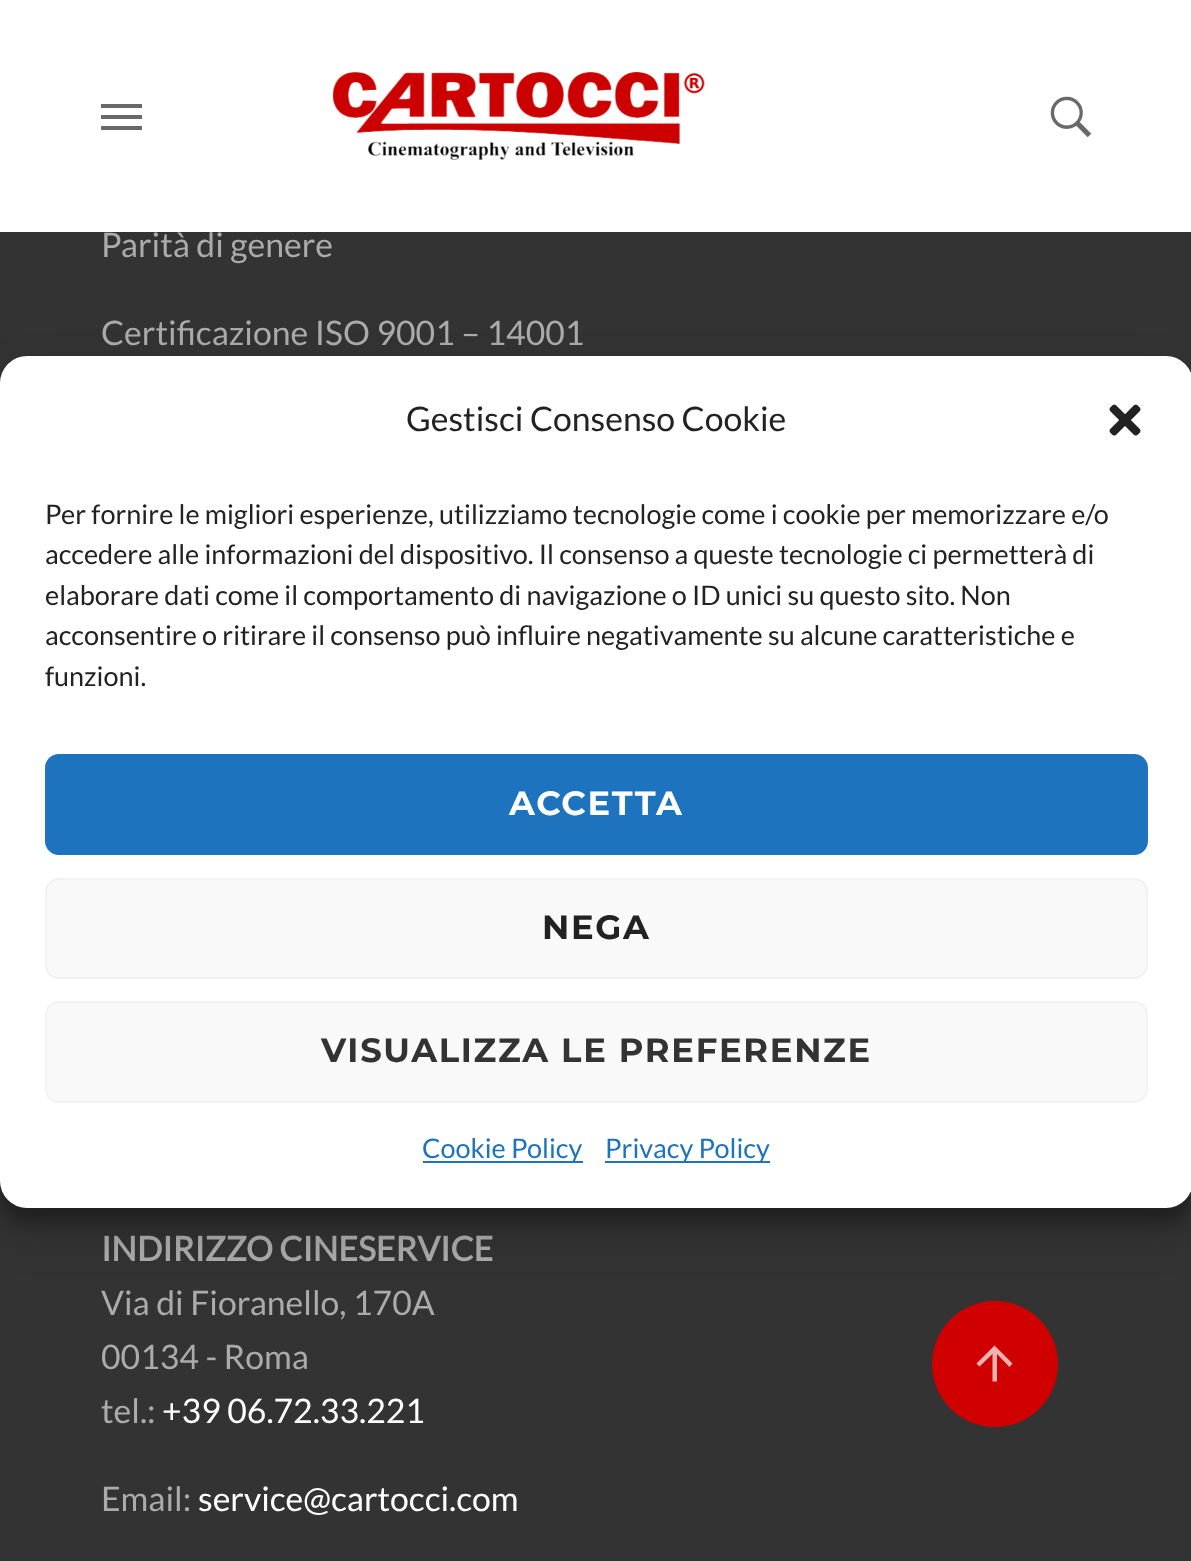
<!DOCTYPE html>
<meta charset="utf-8">
<style>body { margin: 0 } canvas { display: block }</style>
<canvas id="canvas" width="1191" height="1561"></canvas>
<script type="module">
  const canvas = document.getElementById("canvas");
  const g = canvas.getContext("2d");
  g.miterLimit = 4;
  g.fontKerning = "normal";
  function drawText(s, x, y, [font, color]) {
    g.font = font;
    g.fillStyle = color;
    g.fillText(s, x, y);
  }
  function fillBox(x, y, w, h, color) {
    g.fillStyle = color;
    g.fillRect(x, y, w, h);
  }
  function fillRounded(x, y, w, h, r, color) {
    g.fillStyle = color;
    g.beginPath();
    g.roundRect(x, y, w, h, r);
    g.fill();
  }
  async function drawPicture(src, x, y, w, h) {
    const img = new Image();
    img.src = src;
    await img.decode();
    g.drawImage(img, x, y, w, h);
  }

  const s1 = ["33.75px Lato", "#ABABAB"];
  const s2 = ["bold 33.75px Lato", "#ABABAB"];
  const s3 = ["33.75px Lato", "#FFFFFF"];
  const s4 = ["33.75px Lato", "#222222"];
  const s5 = ["27px Lato", "#222222"];
  const s6 = ["bold 33.75px Montserrat", "#FFFFFF"];
  const s7 = ["bold 33.75px Montserrat", "#222222"];
  const s8 = ["bold 33.75px Montserrat", "#333333"];
  const s9 = ["27px Lato", "#1E73BE"];

  fillBox(0, 0, 1191, 1561, "#333333");
  fillBox(0, 0, 1191, 232, "#FFFFFF");
  g.fillStyle = "#696969";
  g.beginPath();
  g.moveTo(101, 130);
  g.lineTo(101, 126);
  g.lineTo(142, 126);
  g.lineTo(142, 130);
  g.closePath();
  g.moveTo(101, 119);
  g.lineTo(101, 115);
  g.lineTo(142, 115);
  g.lineTo(142, 119);
  g.closePath();
  g.moveTo(101, 104);
  g.lineTo(142, 104);
  g.lineTo(142, 108);
  g.lineTo(101, 108);
  g.closePath();
  g.fill();
  await drawPicture("pic1.png", 332, 72, 373, 88);
  await drawPicture("pic2.png", 1050, 96, 42, 42);
  drawText("Parità di genere", 101, 257, s1);
  drawText("Certificazione ISO 9001 – 14001", 101, 345, s1);
  drawText("INDIRIZZO CINESERVICE", 101, 1261, s2);
  drawText("Via di Fioranello, 170A", 101, 1315, s1);
  drawText("00134 - Roma", 101, 1369, s1);
  drawText("tel.:", 101, 1423, s1);
  drawText("+39 06.72.33.221", 162, 1423, s3);
  drawText("Email:", 101, 1511, s1);
  drawText("service@cartocci.com", 198, 1511, s3);
  g.fillStyle = "rgba(0, 0, 0, 0.23)";
  g.filter = "blur(7px)";
  g.beginPath();
  g.roundRect(0, 369, 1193, 853, 27);
  g.fill();
  g.filter = "none";
  g.fillStyle = "rgba(0, 0, 0, 0.19)";
  g.filter = "blur(22.5px)";
  g.beginPath();
  g.roundRect(0, 378, 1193, 853, 27);
  g.fill();
  g.filter = "none";
  fillRounded(0, 356, 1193, 852, 27, "#FFFFFF");
  drawText("Gestisci Consenso Cookie", 406, 431, s4);
  await drawPicture("pic3.png", 1109, 404, 32, 32);
  drawText("Per fornire le migliori esperienze, utilizziamo tecnologie come i cookie per memorizzare e/o", 45, 524, s5);
  drawText("accedere alle informazioni del dispositivo. Il consenso a queste tecnologie ci permetterà di", 45, 564, s5);
  drawText("elaborare dati come il comportamento di navigazione o ID unici su questo sito. Non", 45, 605, s5);
  drawText("acconsentire o ritirare il consenso può influire negativamente su alcune caratteristiche e", 45, 645, s5);
  drawText("funzioni.", 45, 686, s5);
  g.fillStyle = "#1E73BE";
  g.beginPath();
  g.roundRect(46, 755, 1101, 99, 13);
  g.fill();
  g.strokeStyle = "#1E73BE";
  g.lineWidth = 2;
  g.stroke();
  g.letterSpacing = "1.7px";
  drawText("ACCETTA", 509, 815, s6);
  g.fillStyle = "#F9F9F9";
  g.beginPath();
  g.roundRect(46, 879, 1101, 99, 13);
  g.fill();
  g.strokeStyle = "#F2F2F2";
  g.stroke();
  drawText("NEGA", 542, 939, s7);
  g.fillStyle = "#F9F9F9";
  g.beginPath();
  g.roundRect(46, 1002, 1101, 100, 13);
  g.fill();
  g.stroke();
  drawText("VISUALIZZA LE PREFERENZE", 321, 1062, s8);
  fillBox(423, 1161, 160, 2, "#1E73BE");
  g.letterSpacing = "0px";
  drawText("Cookie Policy", 422, 1158, s9);
  fillBox(605, 1161, 165, 2, "#1E73BE");
  drawText("Privacy Policy", 605, 1158, s9);
  g.fillStyle = "#D10000";
  g.beginPath();
  g.arc(995, 1364, 63, 0, Math.PI * 2);
  g.fill();
  g.fillStyle = "#FFFFFF";
  g.beginPath();
  g.moveTo(997, 1381.5);
  g.lineTo(992.5, 1381.5);
  g.lineTo(992.5, 1354);
  g.lineTo(979.5, 1366.5);
  g.lineTo(976.5, 1363.5);
  g.lineTo(994.5, 1345.5);
  g.lineTo(1012.5, 1363.5);
  g.lineTo(1009.5, 1367);
  g.lineTo(997, 1354);
  g.closePath();
  g.fill();
  g.fillStyle = "rgba(209, 0, 0, 0.3)";
  g.beginPath();
  g.arc(995.5, 1364.5, 41.5, 0, Math.PI * 2);
  g.fill();
</script>
